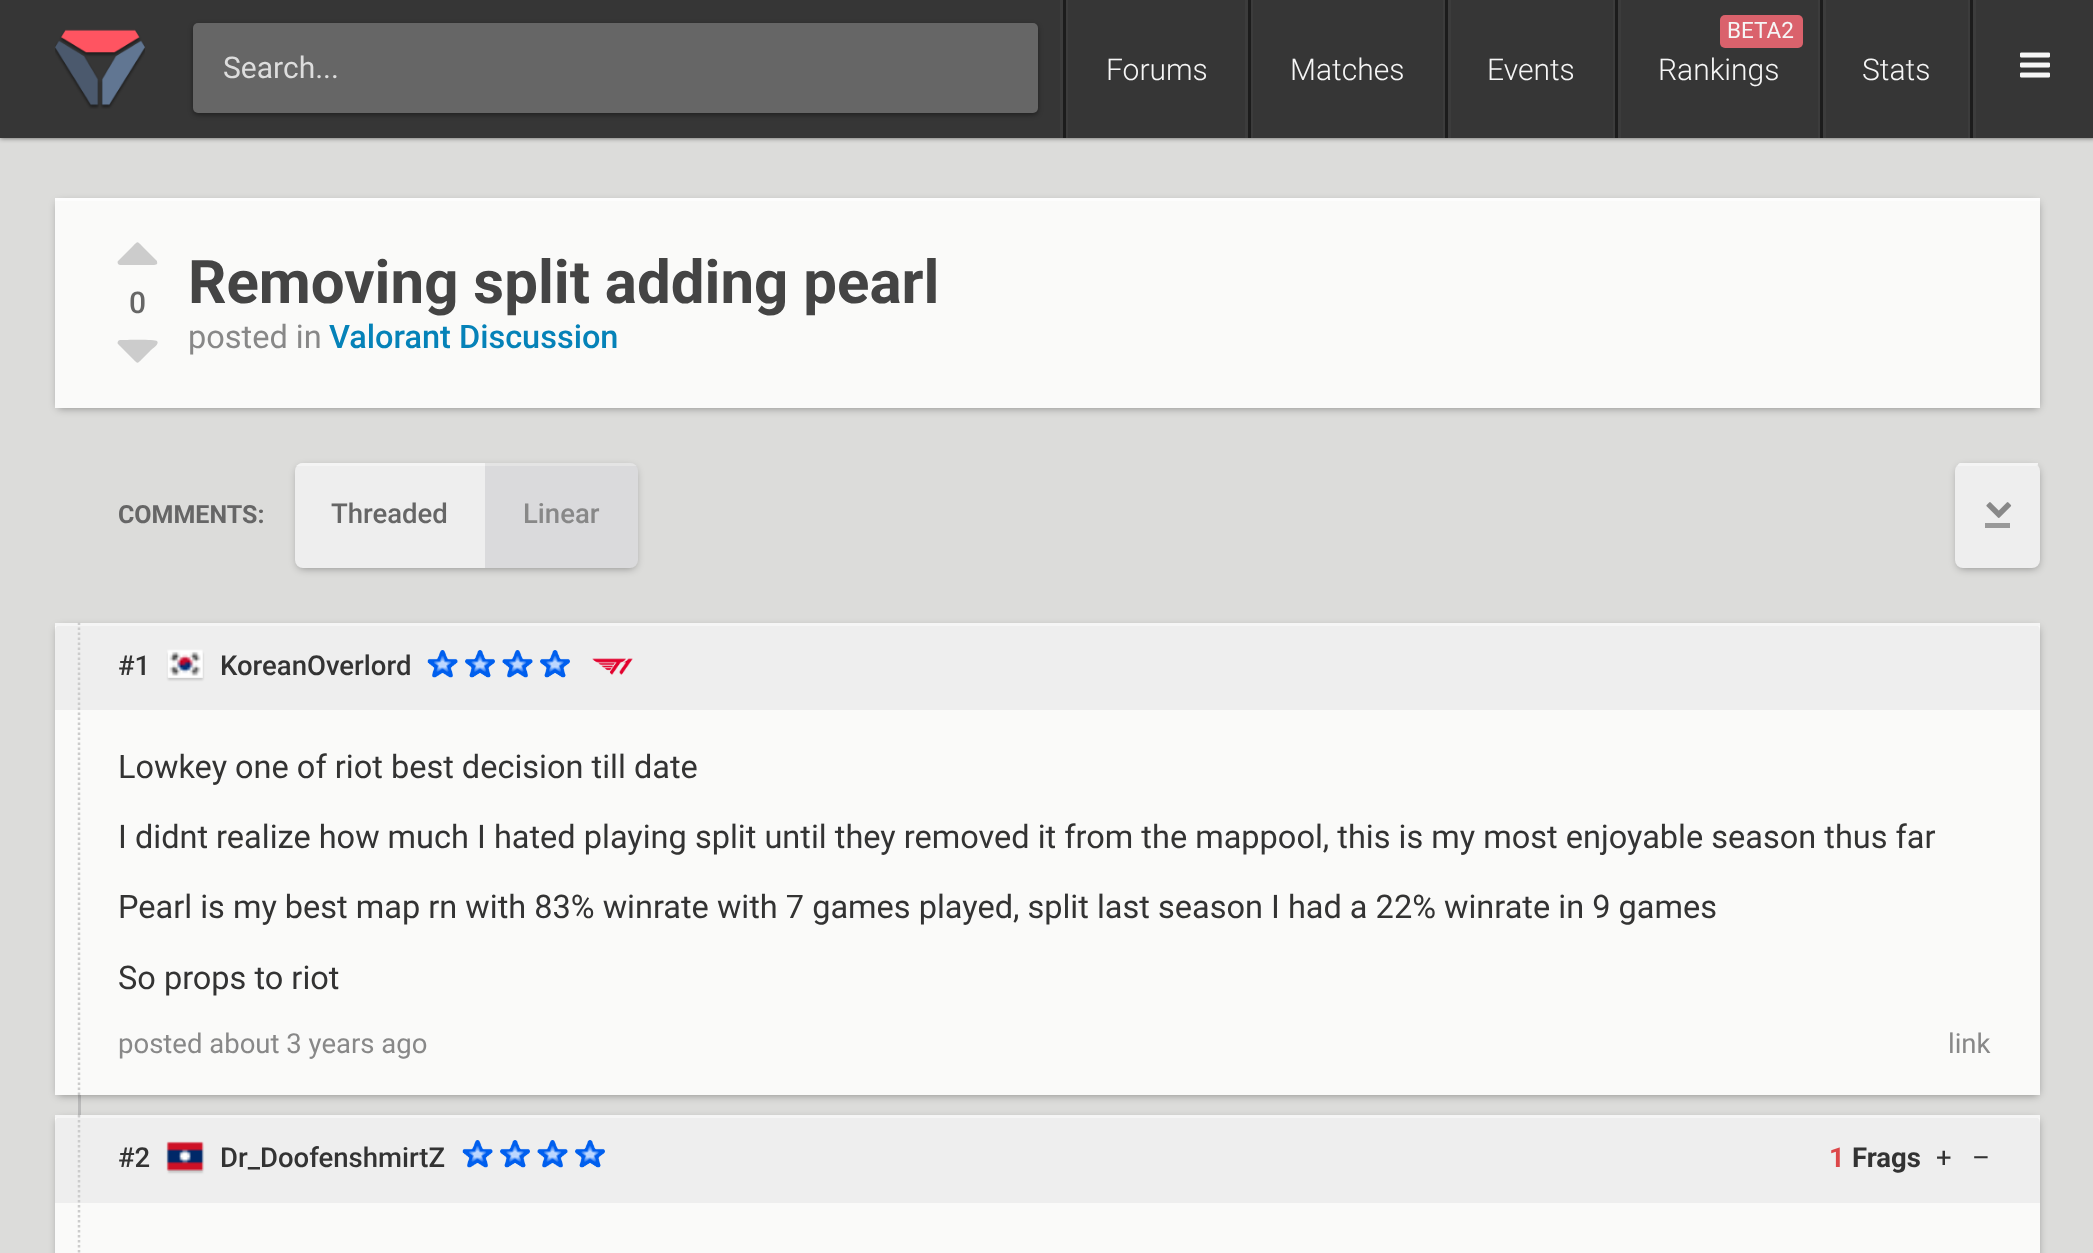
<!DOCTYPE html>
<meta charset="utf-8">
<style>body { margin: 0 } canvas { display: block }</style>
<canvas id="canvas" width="2093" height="1253"></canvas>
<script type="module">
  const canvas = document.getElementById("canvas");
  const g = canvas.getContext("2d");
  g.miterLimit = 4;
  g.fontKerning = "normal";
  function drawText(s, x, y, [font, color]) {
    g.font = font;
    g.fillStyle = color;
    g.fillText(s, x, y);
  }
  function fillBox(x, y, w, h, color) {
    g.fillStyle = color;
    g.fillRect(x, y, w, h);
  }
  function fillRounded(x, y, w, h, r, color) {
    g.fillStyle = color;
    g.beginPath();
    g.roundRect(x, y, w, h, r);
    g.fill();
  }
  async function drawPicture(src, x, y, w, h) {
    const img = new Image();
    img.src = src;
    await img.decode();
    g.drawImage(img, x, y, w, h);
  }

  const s1 = ["30px Roboto", "#DDDDDD"];
  const s2 = ["300 30px Roboto", "#F6F6F6"];
  const s3 = ["22.5px Roboto", "#F6F6F6"];
  const s4 = ["500 30px Roboto", "#666666"];
  const s5 = ["bold 60px Roboto", "#444444"];
  const s6 = ["32.5px Roboto", "#888888"];
  const s7 = ["500 32.5px Roboto", "#0582B8"];
  const s8 = ["bold 25px Roboto", "#666666"];
  const s9 = ["500 27.5px Roboto", "#666666"];
  const s10 = ["500 27.5px Roboto", "#888888"];
  const s11 = ["500 27.5px Roboto", "#333333"];
  const s12 = ["32.5px Roboto", "#333333"];
  const s13 = ["27.5px Roboto", "#888888"];
  const s14 = ["bold 27.5px Roboto", "#DC4749"];
  const s15 = ["bold 27.5px Roboto", "#333333"];
  const s16 = ["27.5px Roboto", "#333333"];

  fillBox(0, 0, 2093, 1253, "#DCDCDA");
  g.fillStyle = "rgba(0, 0, 0, 0.6)";
  g.filter = "blur(2.5px)";
  g.beginPath();
  g.rect(0, 0, 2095, 138);
  g.fill();
  g.filter = "none";
  fillBox(0, 0, 2093, 138, "#363636");
  await drawPicture("pic1.png", 55, 29, 90, 80);
  g.fillStyle = "rgba(0, 0, 0, 0.4)";
  g.filter = "blur(2.5px)";
  g.beginPath();
  g.roundRect(193, 25, 845, 90, 5);
  g.fill();
  g.filter = "none";
  fillRounded(193, 23, 845, 90, 5, "#666666");
  drawText("Search...", 223, 78, s1);
  fillBox(1060, 0, 8, 138, "#3C3C3C");
  fillBox(1063, 0, 3, 138, "#1C1C1C");
  drawText("Forums", 1106, 80, s2);
  fillBox(1245, 0, 8, 138, "#3C3C3C");
  fillBox(1248, 0, 3, 138, "#1C1C1C");
  drawText("Matches", 1290, 80, s2);
  fillBox(1443, 0, 8, 138, "#3C3C3C");
  fillBox(1445, 0, 3, 138, "#1C1C1C");
  drawText("Events", 1487, 80, s2);
  fillBox(1613, 0, 8, 138, "#3C3C3C");
  fillBox(1615, 0, 3, 138, "#1C1C1C");
  fillRounded(1720, 15, 83, 33, 5, "#DA626C");
  drawText("BETA2", 1727, 38, s3);
  drawText("Rankings", 1658, 80, s2);
  fillBox(1818, 0, 8, 138, "#3C3C3C");
  fillBox(1820, 0, 3, 138, "#1C1C1C");
  drawText("Stats", 1862, 80, s2);
  fillBox(1968, 0, 8, 138, "#3C3C3C");
  fillBox(1970, 0, 3, 138, "#1C1C1C");
  await drawPicture("pic2.png", 2020, 52, 30, 26);
  g.fillStyle = "rgba(0, 0, 0, 0.4)";
  g.filter = "blur(4px)";
  g.beginPath();
  g.rect(58, 203, 1980, 205);
  g.fill();
  g.filter = "none";
  fillBox(55, 201, 1985, 207, "#FAFAF9");
  fillBox(55, 198, 1985, 3, "#FDFDFD");
  g.fillStyle = "#CCCCCC";
  g.beginPath();
  g.moveTo(157, 261);
  g.lineTo(157, 262);
  g.bezierCurveTo(159, 266, 150, 265, 149, 265);
  g.lineTo(120, 265);
  g.bezierCurveTo(118, 265, 117, 262, 118, 261);
  g.lineTo(133, 246);
  g.bezierCurveTo(138, 241, 137, 241, 142, 246);
  g.closePath();
  g.fill();
  drawText("0", 129, 313, s4);
  g.fillStyle = "#CCCCCC";
  g.beginPath();
  g.moveTo(157, 341);
  g.bezierCurveTo(160, 344, 152, 349, 151, 350);
  g.lineTo(142, 359);
  g.bezierCurveTo(137, 364, 138, 364, 133, 359);
  g.lineTo(118, 344);
  g.bezierCurveTo(117, 343, 118, 340, 120, 340);
  g.bezierCurveTo(124, 340, 155, 339, 157, 341);
  g.closePath();
  g.fill();
  drawText("Removing split adding pearl", 188, 303, s5);
  drawText("posted in", 188, 348, s6);
  drawText("Valorant Discussion", 329, 348, s7);
  drawText("COMMENTS:", 118, 523, s8);
  g.fillStyle = "rgba(0, 0, 0, 0.4)";
  g.filter = "blur(4px)";
  g.beginPath();
  g.roundRect(298, 468, 337, 100, 5);
  g.fill();
  g.filter = "none";
  g.fillStyle = "#EEEEEE";
  g.beginPath();
  g.roundRect(295, 463, 190, 105, [8, 0, 0, 8]);
  g.fill();
  g.save();
  g.beginPath();
  g.roundRect(295, 463, 343, 105, 8);
  g.clip();
  fillBox(295, 463, 190, 3, "#F4F4F4");
  g.restore();
  drawText("Threaded", 331, 523, s9);
  g.fillStyle = "#DADADC";
  g.beginPath();
  g.roundRect(485, 463, 153, 105, [0, 8, 8, 0]);
  g.fill();
  g.save();
  g.beginPath();
  g.roundRect(295, 463, 343, 105, 8);
  g.clip();
  fillBox(485, 463, 153, 3, "#E4E4E4");
  g.restore();
  drawText("Linear", 523, 523, s10);
  g.fillStyle = "rgba(0, 0, 0, 0.4)";
  g.filter = "blur(4px)";
  g.beginPath();
  g.roundRect(1958, 468, 80, 100, 5);
  g.fill();
  g.filter = "none";
  fillRounded(1955, 463, 85, 105, 8, "#EEEEEE");
  g.fillStyle = "#F4F4F4";
  g.beginPath();
  g.roundRect(1958, 463, 80, 3, [2.5, 0, 2.5, 0]);
  g.fill();
  fillBox(1985, 523, 25, 5, "#999999");
  await drawPicture("pic3.png", 1986, 502, 26, 16);
  fillBox(78, 1095, 3, 20, "#BBBBBB");
  g.fillStyle = "rgba(0, 0, 0, 0.4)";
  g.filter = "blur(4px)";
  g.beginPath();
  g.rect(58, 628, 1980, 467);
  g.fill();
  g.filter = "none";
  fillBox(55, 626, 1985, 469, "#FAFAF9");
  g.fillStyle = "#EEEEEE";
  g.beginPath();
  g.roundRect(55, 623, 1985, 87, [8, 8, 0, 0]);
  g.fill();
  fillBox(55, 623, 1985, 3, "#F5F5F5");
  g.beginPath();
  g.moveTo(79, 622.5);
  g.lineTo(79, 1095);
  g.strokeStyle = "#CCCCCC";
  g.lineWidth = 2.5;
  g.setLineDash([2.5, 2.5]);
  g.stroke();
  drawText("#1", 118, 675, s11);
  await drawPicture("pic4.png", 167, 649, 36, 29);
  g.save();
  g.beginPath();
  g.moveTo(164, 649);
  g.lineTo(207, 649);
  g.lineTo(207, 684);
  g.lineTo(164, 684);
  g.closePath();
  g.moveTo(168, 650);
  g.lineTo(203, 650);
  g.lineTo(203, 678);
  g.lineTo(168, 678);
  g.closePath();
  g.clip("evenodd");
  g.fillStyle = "rgba(0, 0, 0, 0.05)";
  g.filter = "blur(1px)";
  g.beginPath();
  g.rect(168, 653, 35, 27);
  g.fill();
  g.filter = "none";
  g.fillStyle = "rgba(0, 0, 0, 0.1)";
  g.filter = "blur(1px)";
  g.beginPath();
  g.rect(168, 653, 35, 27);
  g.fill();
  g.filter = "none";
  g.restore();
  drawText("KoreanOverlord", 220, 675, s11);
  await drawPicture("pic5.png", 427, 650, 31, 28);
  await drawPicture("pic6.png", 465, 650, 30, 28);
  await drawPicture("pic7.png", 502, 650, 31, 28);
  await drawPicture("pic6.png", 540, 650, 30, 28);
  await drawPicture("pic8.png", 592, 658, 41, 17);
  drawText("Lowkey one of riot best decision till date", 118, 778, s12);
  drawText("I didnt realize how much I hated playing split until they removed it from the mappool, this is my most enjoyable season thus far", 118, 848, s12);
  drawText("Pearl is my best map rn with 83% winrate with 7 games played, split last season I had a 22% winrate in 9 games", 118, 918, s12);
  drawText("So props to riot", 118, 989, s12);
  drawText("posted about 3 years ago", 118, 1053, s13);
  drawText("link", 1948, 1053, s13);
  g.fillStyle = "rgba(0, 0, 0, 0.4)";
  g.filter = "blur(4px)";
  g.beginPath();
  g.rect(58, 1120, 1980, 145);
  g.fill();
  g.filter = "none";
  fillBox(55, 1118, 1985, 135, "#FAFAF9");
  g.fillStyle = "#EEEEEE";
  g.beginPath();
  g.roundRect(55, 1115, 1985, 88, [8, 8, 0, 0]);
  g.fill();
  fillBox(55, 1115, 1985, 3, "#F5F5F5");
  g.beginPath();
  g.moveTo(79, 1115);
  g.lineTo(79, 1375);
  g.stroke();
  drawText("#2", 118, 1167, s11);
  await drawPicture("pic9.png", 166, 1141, 38, 30);
  g.save();
  g.beginPath();
  g.rect(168, 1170, 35, 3);
  g.clip();
  g.fillStyle = "rgba(0, 0, 0, 0.05)";
  g.filter = "blur(1px)";
  g.beginPath();
  g.rect(168, 1145, 35, 28);
  g.fill();
  g.filter = "none";
  g.restore();
  g.save();
  g.beginPath();
  g.moveTo(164, 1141);
  g.lineTo(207, 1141);
  g.lineTo(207, 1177);
  g.lineTo(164, 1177);
  g.closePath();
  g.moveTo(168, 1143);
  g.lineTo(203, 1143);
  g.lineTo(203, 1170);
  g.lineTo(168, 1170);
  g.closePath();
  g.clip("evenodd");
  g.fillStyle = "rgba(0, 0, 0, 0.1)";
  g.filter = "blur(1px)";
  g.beginPath();
  g.rect(168, 1145, 35, 28);
  g.fill();
  g.filter = "none";
  g.restore();
  drawText("Dr_DoofenshmirtZ", 220, 1167, s11);
  await drawPicture("pic5.png", 462, 1140, 31, 28);
  await drawPicture("pic10.png", 500, 1140, 30, 28);
  await drawPicture("pic11.png", 537, 1140, 31, 28);
  await drawPicture("pic6.png", 575, 1140, 30, 28);
  drawText("1", 1829, 1167, s14);
  drawText("Frags", 1852, 1167, s15);
  drawText("+", 1936, 1167, s16);
  drawText("–", 1972, 1167, s16);
</script>
